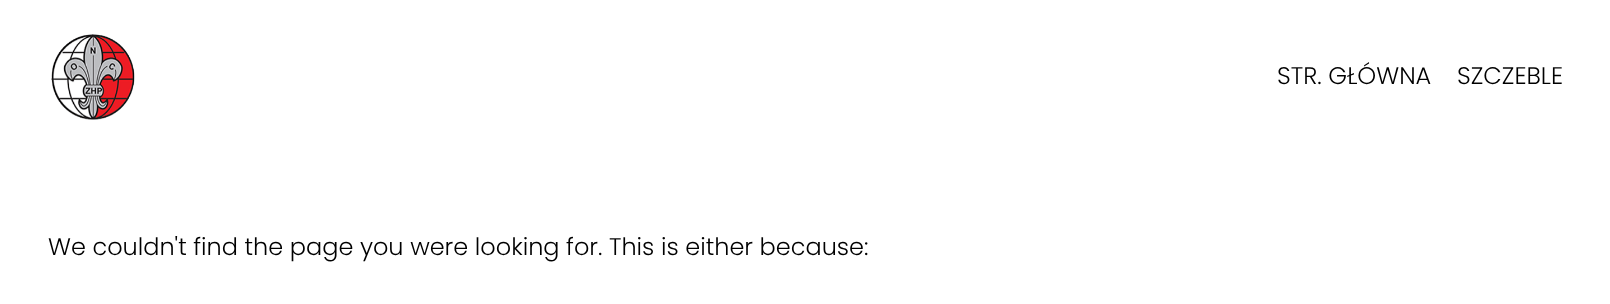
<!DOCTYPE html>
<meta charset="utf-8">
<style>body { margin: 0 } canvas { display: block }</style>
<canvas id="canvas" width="1610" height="304"></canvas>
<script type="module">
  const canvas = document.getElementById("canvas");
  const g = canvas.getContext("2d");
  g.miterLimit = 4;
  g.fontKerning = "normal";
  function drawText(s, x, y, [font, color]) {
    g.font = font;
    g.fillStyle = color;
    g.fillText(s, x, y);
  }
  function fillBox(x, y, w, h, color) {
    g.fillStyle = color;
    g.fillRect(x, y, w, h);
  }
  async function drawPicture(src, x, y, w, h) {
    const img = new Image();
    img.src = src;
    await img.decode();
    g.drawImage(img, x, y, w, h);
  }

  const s1 = ["300 24px Poppins", "#000000"];

  fillBox(0, 0, 1610, 304, "#FFFFFF");
  await drawPicture("pic1.png", 51, 34, 84, 86);
  drawText("STR. GŁÓWNA", 1277, 84, s1);
  drawText("SZCZEBLE", 1457, 84, s1);
  drawText("We couldn't find the page you were looking for. This is either because:", 48, 255, s1);
</script>
